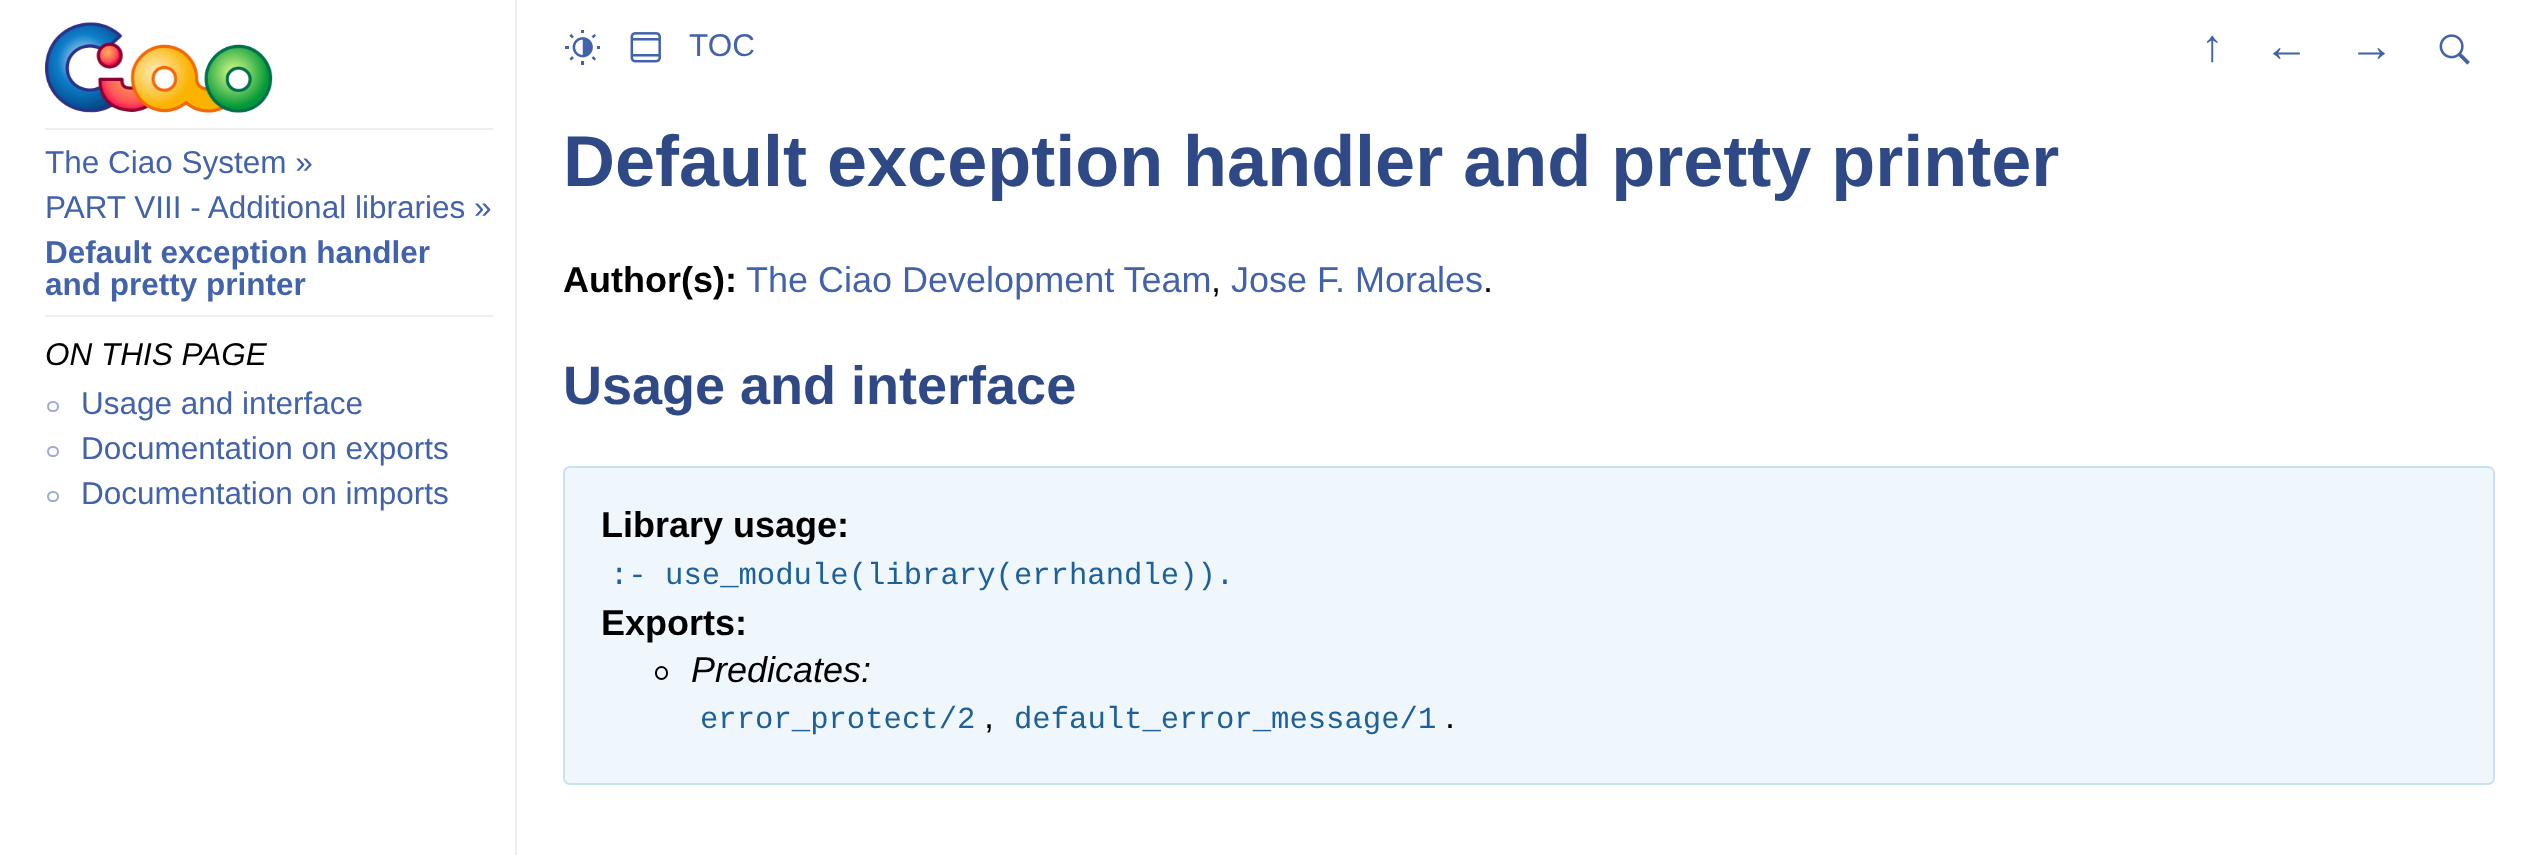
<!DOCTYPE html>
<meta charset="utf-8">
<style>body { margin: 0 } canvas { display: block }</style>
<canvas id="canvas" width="2539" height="855"></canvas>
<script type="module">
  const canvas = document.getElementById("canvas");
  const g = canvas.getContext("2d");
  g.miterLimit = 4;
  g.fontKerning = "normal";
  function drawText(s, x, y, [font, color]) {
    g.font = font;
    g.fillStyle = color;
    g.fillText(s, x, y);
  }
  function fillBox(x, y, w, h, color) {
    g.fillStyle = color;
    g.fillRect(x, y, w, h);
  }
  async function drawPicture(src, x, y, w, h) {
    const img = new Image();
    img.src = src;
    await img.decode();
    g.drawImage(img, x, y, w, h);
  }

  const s1 = ["31.5px Liberation Sans", "#4263AB"];
  const s2 = ["bold 31.5px Liberation Sans", "#4263AB"];
  const s3 = ["italic 31.5px Liberation Sans", "#000000"];
  const s4 = ["45px Liberation Sans", "#4263AB"];
  const s5 = ["bold 72px Liberation Sans", "#2E4985"];
  const s6 = ["bold 36px Liberation Sans", "#000000"];
  const s7 = ["36px Liberation Sans", "#4263AB"];
  const s8 = ["36px Liberation Sans", "#000000"];
  const s9 = ["bold 54px Liberation Sans", "#2E4985"];
  const s10 = ["30.6px Liberation Mono", "#1D609A"];
  const s11 = ["italic 36px Liberation Sans", "#000000"];

  fillBox(0, 0, 2539, 855, "#FFFFFF");
  fillBox(515, 0, 2, 855, "#EEEEEE");
  await drawPicture("pic1.png", 45, 22, 228, 91);
  fillBox(45, 128, 448, 2, "#EEEEEE");
  drawText("The Ciao System »", 45, 173, s1);
  drawText("PART VIII - Additional libraries »", 45, 218, s1);
  drawText("Default exception handler", 45, 263, s2);
  drawText("and pretty printer", 45, 295, s2);
  fillBox(45, 315, 448, 2, "#EEEEEE");
  drawText("ON THIS PAGE", 45, 365, s3);
  g.beginPath();
  g.roundRect(48, 402, 10, 9, 4.5);
  g.strokeStyle = "#9CADD3";
  g.lineWidth = 2;
  g.stroke();
  drawText("Usage and interface", 81, 414, s1);
  g.beginPath();
  g.roundRect(48, 447, 10, 9, 4.5);
  g.stroke();
  drawText("Documentation on exports", 81, 459, s1);
  g.beginPath();
  g.roundRect(48, 492, 10, 9, 4.5);
  g.stroke();
  drawText("Documentation on imports", 81, 504, s1);
  await drawPicture("pic2.png", 565, 30, 35, 35);
  await drawPicture("pic3.png", 630, 32, 31, 31);
  drawText("TOC", 689, 56, s1);
  drawText("↑", 2201, 61, s4);
  drawText("←", 2264, 61, s4);
  drawText("→", 2349, 61, s4);
  await drawPicture("pic4.png", 2439, 34, 31, 31);
  drawText("Default exception handler and pretty printer", 563, 186, s5);
  drawText("Author(s):", 563, 292, s6);
  drawText("The Ciao Development Team", 746, 292, s7);
  drawText(",", 1211, 292, s8);
  drawText("Jose F. Morales", 1231, 292, s7);
  drawText(".", 1483, 292, s8);
  drawText("Usage and interface", 563, 404, s9);
  g.fillStyle = "#EFF6FC";
  g.beginPath();
  g.roundRect(564, 467, 1930, 317, 6);
  g.fill();
  g.strokeStyle = "#C8E2F0";
  g.stroke();
  drawText("Library usage:", 601, 537, s6);
  drawText(":- use_module(library(errhandle)).", 610, 584, s10);
  drawText("Exports:", 601, 635, s6);
  g.beginPath();
  g.roundRect(656, 667, 11, 12, 5.5);
  g.strokeStyle = "#000000";
  g.stroke();
  drawText("Predicates:", 691, 682, s11);
  drawText("error_protect/2", 700, 728, s10);
  drawText(",", 984, 728, s8);
  drawText("default_error_message/1", 1014, 728, s10);
  drawText(".", 1445, 728, s8);
</script>
